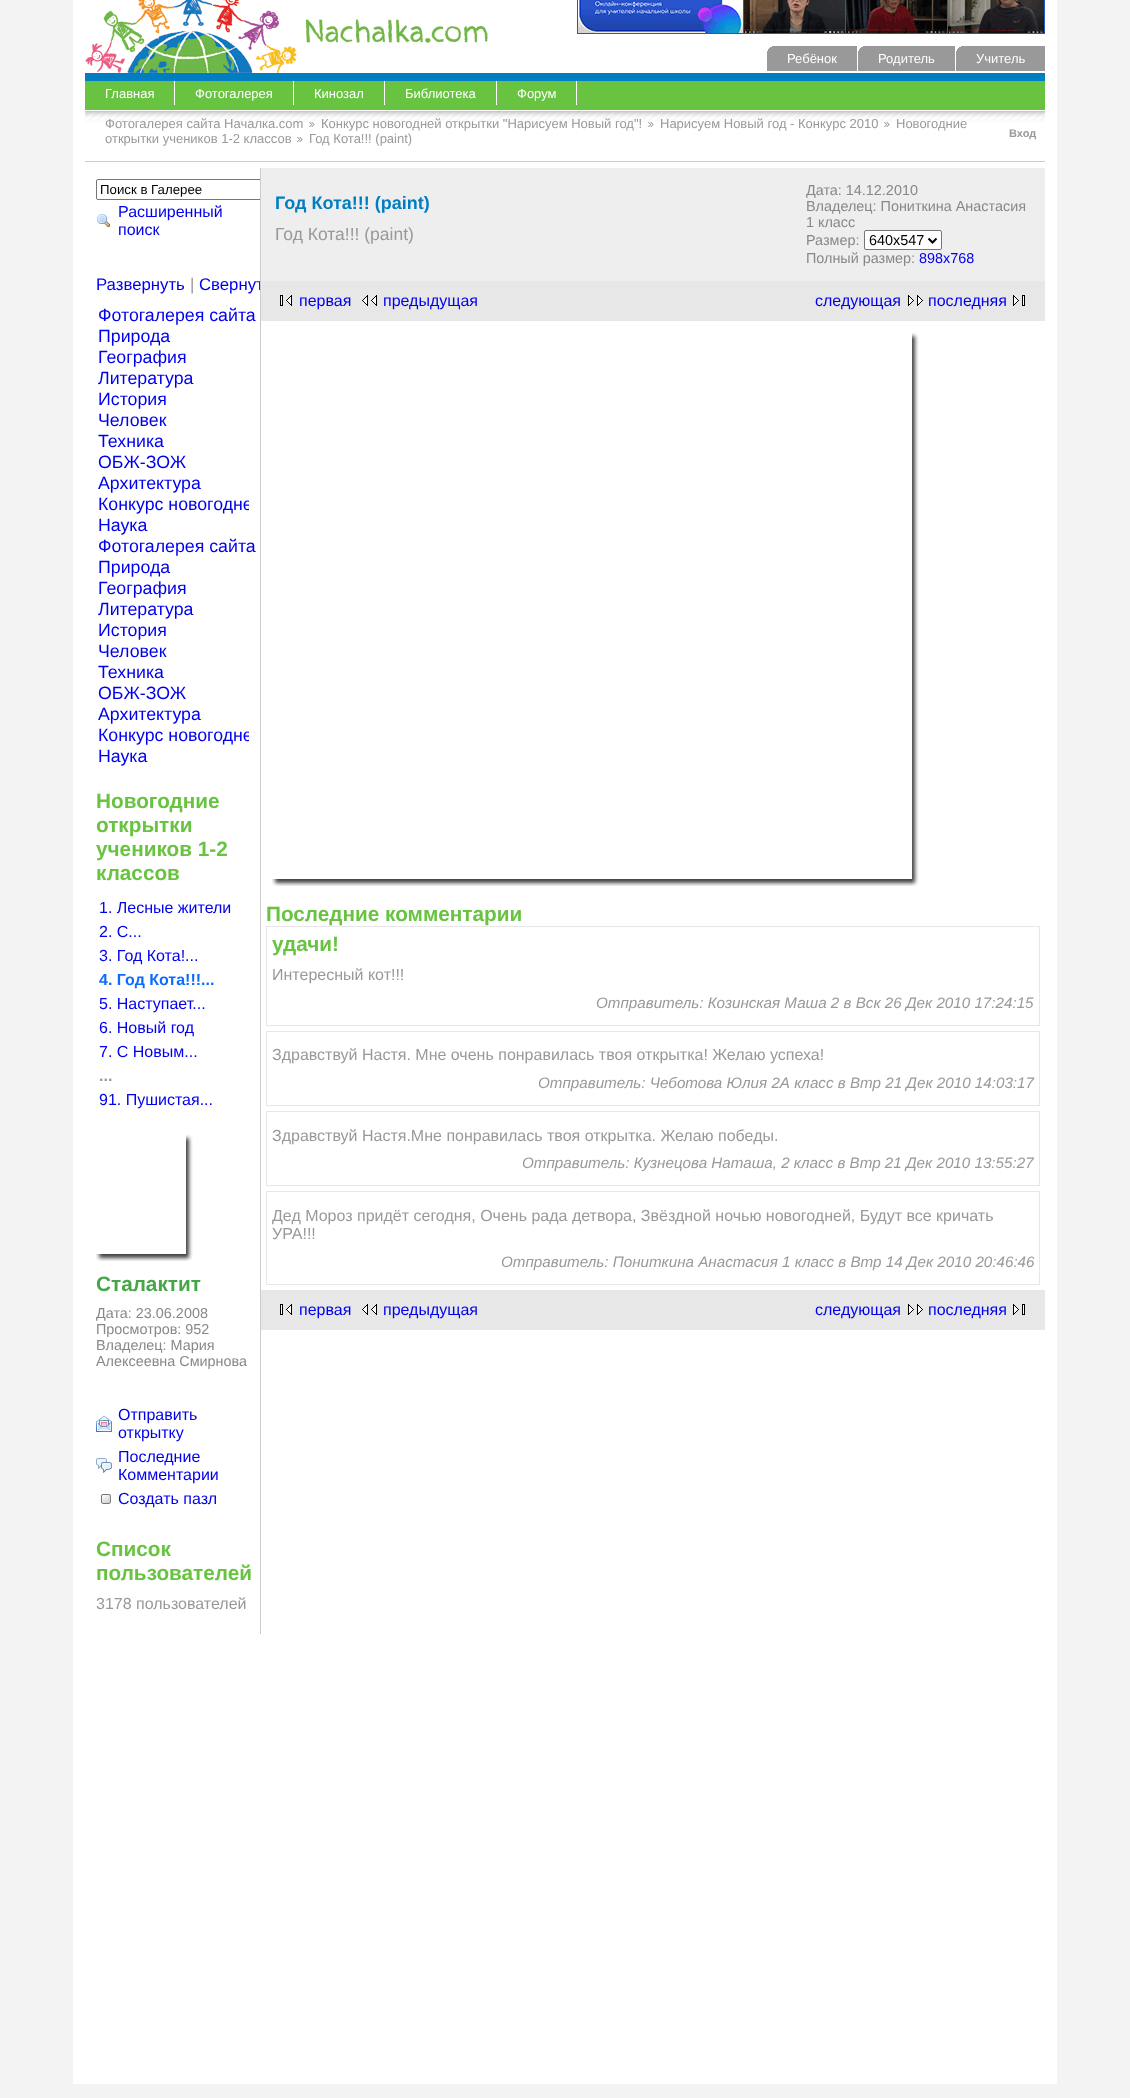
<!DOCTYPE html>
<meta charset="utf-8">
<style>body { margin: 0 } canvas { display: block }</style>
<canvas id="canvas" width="1130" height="2098"></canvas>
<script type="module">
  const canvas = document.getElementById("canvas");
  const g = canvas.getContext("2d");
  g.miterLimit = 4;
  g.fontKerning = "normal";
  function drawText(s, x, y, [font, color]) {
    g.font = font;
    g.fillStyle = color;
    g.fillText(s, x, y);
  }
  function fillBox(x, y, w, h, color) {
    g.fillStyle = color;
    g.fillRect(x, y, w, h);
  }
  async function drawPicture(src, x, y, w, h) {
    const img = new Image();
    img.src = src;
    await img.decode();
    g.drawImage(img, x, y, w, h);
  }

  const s1 = ["13px Liberation Sans", "#FFFFFF"];
  const s2 = ["13px Liberation Sans", "#999999"];
  const s3 = ["bold 11px Liberation Sans", "#999999"];
  const s4 = ["13.25px Liberation Sans", "#000000"];
  const s5 = ["16px Liberation Sans", "#0000EE"];
  const s6 = ["16.75px Liberation Sans", "#0000EE"];
  const s7 = ["16.75px Liberation Sans", "#999999"];
  const s8 = ["17.75px Liberation Sans", "#0000EE"];
  const s9 = ["bold 20.75px Liberation Sans", "#68C341"];
  const s10 = ["bold 16px Liberation Sans", "#0B6CFF"];
  const s11 = ["bold 16px Liberation Sans", "#999999"];
  const s12 = ["bold 20.75px Liberation Sans", "#47A747"];
  const s13 = ["14.4px Liberation Sans", "#888888"];
  const s14 = ["16px Liberation Sans", "#999999"];
  const s15 = ["bold 18px Liberation Sans", "#017DC1"];
  const s16 = ["17.5px Liberation Sans", "#999999"];
  const s17 = ["14.4px Liberation Sans", "#000000"];
  const s18 = ["14.4px Liberation Sans", "#0000EE"];
  const s19 = ["italic 15.2px Liberation Sans", "#999999"];

  fillBox(0, 0, 1130, 2098, "#F3F3F3");
  fillBox(73, 0, 984, 2084, "#FFFFFF");
  await drawPicture("pic1.png", 85, 0, 403, 73);
  await drawPicture("pic2.png", 577, 0, 468, 34);
  fillBox(767, 46, 90, 25, "#999999");
  await drawPicture("pic3.png", 767, 46, 5, 5);
  drawText("Ребёнок", 787, 63, s1);
  fillBox(858, 46, 97, 25, "#999999");
  await drawPicture("pic3.png", 858, 46, 5, 5);
  drawText("Родитель", 878, 63, s1);
  fillBox(956, 46, 89, 25, "#999999");
  await drawPicture("pic3.png", 956, 46, 5, 5);
  drawText("Учитель", 976, 63, s1);
  fillBox(85, 73, 960, 8, "#017DC1");
  fillBox(85, 81, 960, 29, "#68C341");
  fillBox(174, 81, 1, 24, "#FFFFFF");
  drawText("Главная", 105, 98, s1);
  fillBox(293, 81, 1, 24, "#FFFFFF");
  drawText("Фотогалерея", 195, 98, s1);
  fillBox(384, 81, 1, 24, "#FFFFFF");
  drawText("Кинозал", 314, 98, s1);
  fillBox(496, 81, 1, 24, "#FFFFFF");
  drawText("Библиотека", 405, 98, s1);
  fillBox(576, 81, 1, 24, "#FFFFFF");
  drawText("Форум", 517, 98, s1);
  await drawPicture("pic4.png", 85, 111, 960, 11);
  fillBox(85, 161, 960, 1, "#CCCCCC");
  drawText("Фотогалерея сайта Началка.com", 105, 128, s2);
  await drawPicture("pic5.png", 309, 122, 6, 5);
  drawText("Конкурс новогодней открытки \"Нарисуем Новый год\"!", 321, 128, s2);
  await drawPicture("pic5.png", 648, 122, 6, 5);
  drawText("Нарисуем Новый год - Конкурс 2010", 660, 128, s2);
  await drawPicture("pic5.png", 884, 122, 6, 5);
  drawText("Новогодние", 896, 128, s2);
  drawText("открытки учеников 1-2 классов", 105, 143, s2);
  await drawPicture("pic5.png", 297, 137, 6, 5);
  drawText("Год Кота!!! (paint)", 309, 143, s2);
  drawText("Вход", 1009, 137, s3);
  fillBox(260, 168, 1, 1466, "#CCCCCC");
  fillBox(261, 168, 784, 113, "#EEEEEE");
  g.save();
  g.beginPath();
  g.rect(85, 168, 175, 1466);
  g.clip();
  g.beginPath();
  g.roundRect(96.5, 179.5, 168, 20, 1.5);
  g.strokeStyle = "#767676";
  g.stroke();
  g.restore();
  drawText("Поиск в Галерее", 100, 194, s4);
  await drawPicture("pic6.png", 97, 214, 13, 14);
  drawText("Расширенный", 118, 217, s5);
  drawText("поиск", 118, 235, s5);
  drawText("Развернуть", 96, 290, s6);
  drawText("|", 190, 290, s7);
  g.save();
  g.beginPath();
  g.rect(85, 168, 175, 1466);
  g.clip();
  drawText("Свернут", 199, 290, s6);
  g.restore();
  drawText("Фотогалерея сайта", 98, 321, s8);
  drawText("Природа", 98, 342, s8);
  drawText("География", 98, 363, s8);
  drawText("Литература", 98, 384, s8);
  drawText("История", 98, 405, s8);
  drawText("Человек", 98, 426, s8);
  drawText("Техника", 98, 447, s8);
  drawText("ОБЖ-ЗОЖ", 98, 468, s8);
  drawText("Архитектура", 98, 489, s8);
  g.save();
  g.beginPath();
  g.rect(96, 326, 153, 210);
  g.clip();
  drawText("Конкурс новогодне", 98, 510, s8);
  g.restore();
  drawText("Наука", 98, 531, s8);
  drawText("Фотогалерея сайта", 98, 552, s8);
  drawText("Природа", 98, 573, s8);
  drawText("География", 98, 594, s8);
  drawText("Литература", 98, 615, s8);
  drawText("История", 98, 636, s8);
  drawText("Человек", 98, 657, s8);
  drawText("Техника", 98, 678, s8);
  drawText("ОБЖ-ЗОЖ", 98, 699, s8);
  drawText("Архитектура", 98, 720, s8);
  g.save();
  g.beginPath();
  g.rect(96, 557, 153, 210);
  g.clip();
  drawText("Конкурс новогодне", 98, 741, s8);
  g.restore();
  drawText("Наука", 98, 762, s8);
  drawText("Новогодние", 96, 808, s9);
  drawText("открытки", 96, 832, s9);
  drawText("учеников 1-2", 96, 856, s9);
  drawText("классов", 96, 880, s9);
  drawText("1. Лесные жители", 99, 913, s5);
  drawText("2. С...", 99, 937, s5);
  drawText("3. Год Кота!...", 99, 961, s5);
  drawText("4. Год Кота!!!...", 99, 985, s10);
  drawText("5. Наступает...", 99, 1009, s5);
  drawText("6. Новый год", 99, 1033, s5);
  drawText("7. С Новым...", 99, 1057, s5);
  drawText("...", 99, 1081, s11);
  drawText("91. Пушистая...", 99, 1105, s5);
  await drawPicture("pic7.png", 186, 1134, 7, 10);
  await drawPicture("pic8.png", 186, 1144, 7, 110);
  await drawPicture("pic9.png", 96, 1254, 9, 7);
  await drawPicture("pic10.png", 105, 1254, 81, 7);
  await drawPicture("pic11.png", 186, 1254, 7, 7);
  drawText("Сталактит", 96, 1291, s12);
  drawText("Дата: 23.06.2008", 96, 1318, s13);
  drawText("Просмотров: 952", 96, 1334, s13);
  drawText("Владелец: Мария", 96, 1350, s13);
  drawText("Алексеевна Смирнова", 96, 1366, s13);
  await drawPicture("pic12.png", 96, 1416, 16, 16);
  drawText("Отправить", 118, 1420, s5);
  drawText("открытку", 118, 1438, s5);
  await drawPicture("pic13.png", 96, 1458, 16, 15);
  drawText("Последние", 118, 1462, s5);
  drawText("Комментарии", 118, 1480, s5);
  await drawPicture("pic14.png", 101, 1494, 10, 10);
  drawText("Создать пазл", 118, 1504, s5);
  drawText("Список", 96, 1556, s9);
  drawText("пользователей", 96, 1580, s9);
  drawText("3178 пользователей", 96, 1609, s14);
  drawText("Год Кота!!! (paint)", 275, 209, s15);
  drawText("Год Кота!!! (paint)", 275, 240, s16);
  drawText("Дата: 14.12.2010", 806, 195, s13);
  drawText("Владелец: Пониткина Анастасия", 806, 211, s13);
  drawText("1 класс", 806, 227, s13);
  drawText("Размер:", 806, 245, s13);
  g.fillStyle = "#FFFFFF";
  g.beginPath();
  g.roundRect(864.5, 230.5, 77, 19, 1.5);
  g.fill();
  g.strokeStyle = "#767676";
  g.stroke();
  g.beginPath();
  g.moveTo(928.5, 238.5);
  g.lineTo(932.5, 242.5);
  g.lineTo(936.5, 238.5);
  g.strokeStyle = "#000000";
  g.lineWidth = 2;
  g.stroke();
  drawText("640x547", 869, 245, s17);
  drawText("Полный размер:", 806, 263, s13);
  drawText("898x768", 919, 263, s18);
  fillBox(261, 281, 784, 40, "#E7E7E7");
  await drawPicture("pic15.png", 280, 295, 12, 11);
  drawText("первая", 299, 306, s5);
  await drawPicture("pic16.png", 362, 295, 15, 11);
  drawText("предыдущая", 383, 306, s5);
  drawText("следующая", 815, 306, s5);
  await drawPicture("pic17.png", 908, 295, 15, 11);
  drawText("последняя", 928, 306, s5);
  await drawPicture("pic18.png", 1013, 295, 12, 11);
  await drawPicture("pic7.png", 912, 332, 7, 10);
  await drawPicture("pic19.png", 912, 342, 7, 537);
  await drawPicture("pic9.png", 272, 879, 9, 7);
  await drawPicture("pic20.png", 281, 879, 631, 7);
  await drawPicture("pic11.png", 912, 879, 7, 7);
  drawText("Последние комментарии", 266, 921, s9);
  g.strokeStyle = "#E7E7E7";
  g.lineWidth = 1;
  g.strokeRect(266.5, 926.5, 773, 99);
  drawText("удачи!", 272, 951, s9);
  drawText("Интересный кот!!!", 272, 980, s14);
  drawText("Отправитель: Козинская Маша 2 в Вск 26 Дек 2010 17:24:15", 596, 1008, s19);
  g.strokeRect(266.5, 1031.5, 773, 74);
  drawText("Здравствуй Настя. Мне очень понравилась твоя открытка! Желаю успеха!", 272, 1060, s14);
  drawText("Отправитель: Чеботова Юлия 2А класс в Втр 21 Дек 2010 14:03:17", 538, 1088, s19);
  g.strokeRect(266.5, 1111.5, 773, 74);
  drawText("Здравствуй Настя.Мне понравилась твоя открытка. Желаю победы.", 272, 1141, s14);
  drawText("Отправитель: Кузнецова Наташа, 2 класс в Втр 21 Дек 2010 13:55:27", 522, 1168, s19);
  g.strokeRect(266.5, 1191.5, 773, 93);
  drawText("Дед Мороз придёт сегодня, Очень рада детвора, Звёздной ночью новогодней, Будут все кричать", 272, 1221, s14);
  drawText("УРА!!!", 272, 1239, s14);
  drawText("Отправитель: Пониткина Анастасия 1 класс в Втр 14 Дек 2010 20:46:46", 501, 1267, s19);
  fillBox(261, 1290, 784, 40, "#E7E7E7");
  await drawPicture("pic15.png", 280, 1304, 12, 11);
  drawText("первая", 299, 1315, s5);
  await drawPicture("pic16.png", 362, 1304, 15, 11);
  drawText("предыдущая", 383, 1315, s5);
  drawText("следующая", 815, 1315, s5);
  await drawPicture("pic17.png", 908, 1304, 15, 11);
  drawText("последняя", 928, 1315, s5);
  await drawPicture("pic18.png", 1013, 1304, 12, 11);
</script>
